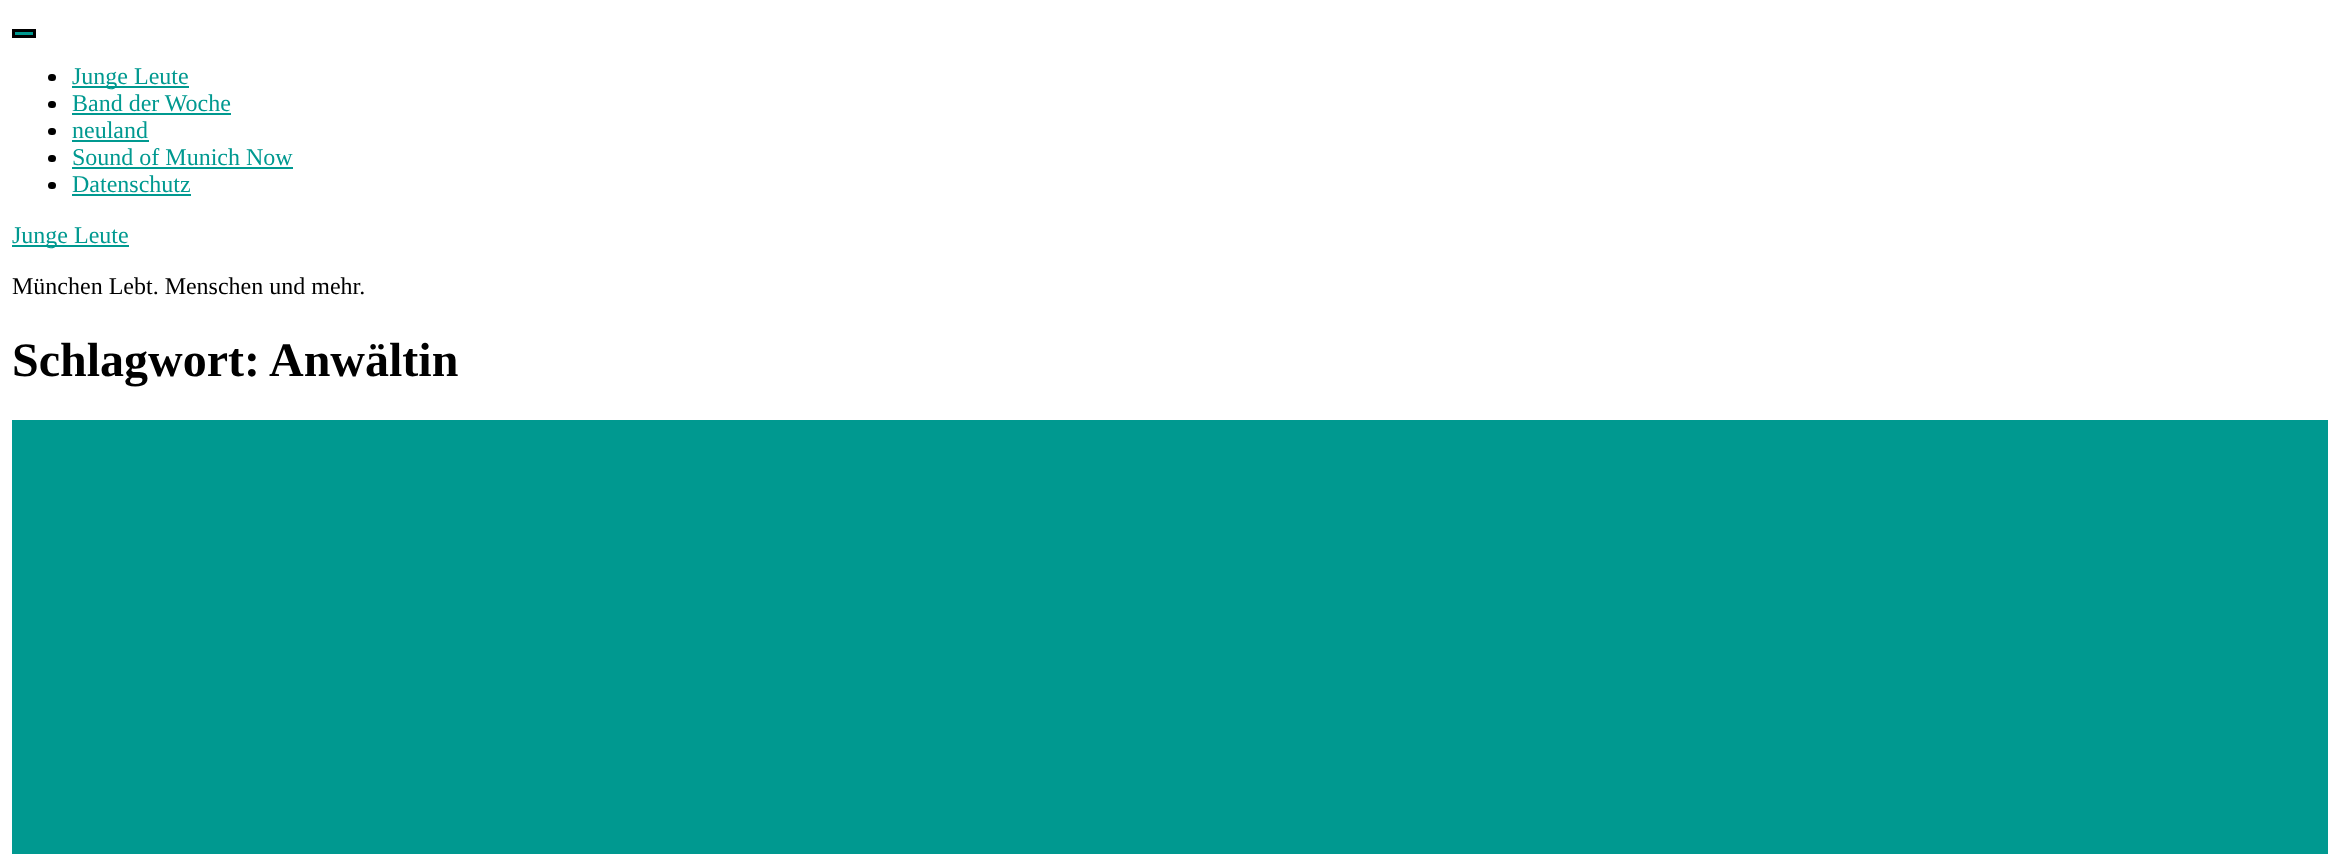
<!DOCTYPE html>
<meta charset="utf-8">
<style>body { margin: 0 } canvas { display: block }</style>
<canvas id="canvas" width="2340" height="854"></canvas>
<script type="module">
  const canvas = document.getElementById("canvas");
  const g = canvas.getContext("2d");
  g.miterLimit = 4;
  g.fontKerning = "normal";
  function drawText(s, x, y, [font, color]) {
    g.font = font;
    g.fillStyle = color;
    g.fillText(s, x, y);
  }
  function fillBox(x, y, w, h, color) {
    g.fillStyle = color;
    g.fillRect(x, y, w, h);
  }
  function fillRounded(x, y, w, h, r, color) {
    g.fillStyle = color;
    g.beginPath();
    g.roundRect(x, y, w, h, r);
    g.fill();
  }

  const s1 = ["24px Liberation Serif", "#009990"];
  const s2 = ["24px Liberation Serif", "#000000"];
  const s3 = ["bold 48px Liberation Serif", "#000000"];

  fillBox(0, 0, 2340, 854, "#FFFFFF");
  g.fillStyle = "#009990";
  g.beginPath();
  g.rect(13.5, 30.5, 21, 6);
  g.fill();
  g.strokeStyle = "#000000";
  g.lineWidth = 3;
  g.stroke();
  fillRounded(48, 74, 8, 7, 3.5, "#000000");
  fillBox(72, 86, 117, 2, "#009990");
  drawText("Junge Leute", 72, 84, s1);
  fillRounded(48, 101, 8, 7, 3.5, "#000000");
  drawText("Band der Woche", 72, 111, s1);
  fillBox(72, 113, 159, 2, "#009990");
  fillRounded(48, 128, 8, 7, 3.5, "#000000");
  drawText("neuland", 72, 138, s1);
  fillBox(72, 140, 77, 2, "#009990");
  fillRounded(48, 155, 8, 7, 3.5, "#000000");
  drawText("Sound of Munich Now", 72, 165, s1);
  fillBox(72, 167, 221, 2, "#009990");
  fillRounded(48, 182, 8, 7, 3.5, "#000000");
  drawText("Datenschutz", 72, 192, s1);
  fillBox(72, 194, 119, 2, "#009990");
  fillBox(12, 245, 117, 2, "#009990");
  drawText("Junge Leute", 12, 243, s1);
  drawText("München Lebt. Menschen und mehr.", 12, 294, s2);
  drawText("Schlagwort:", 12, 376, s3);
  drawText("Anwältin", 269, 376, s3);
  fillBox(12, 420, 2316, 434, "#009990");
</script>
